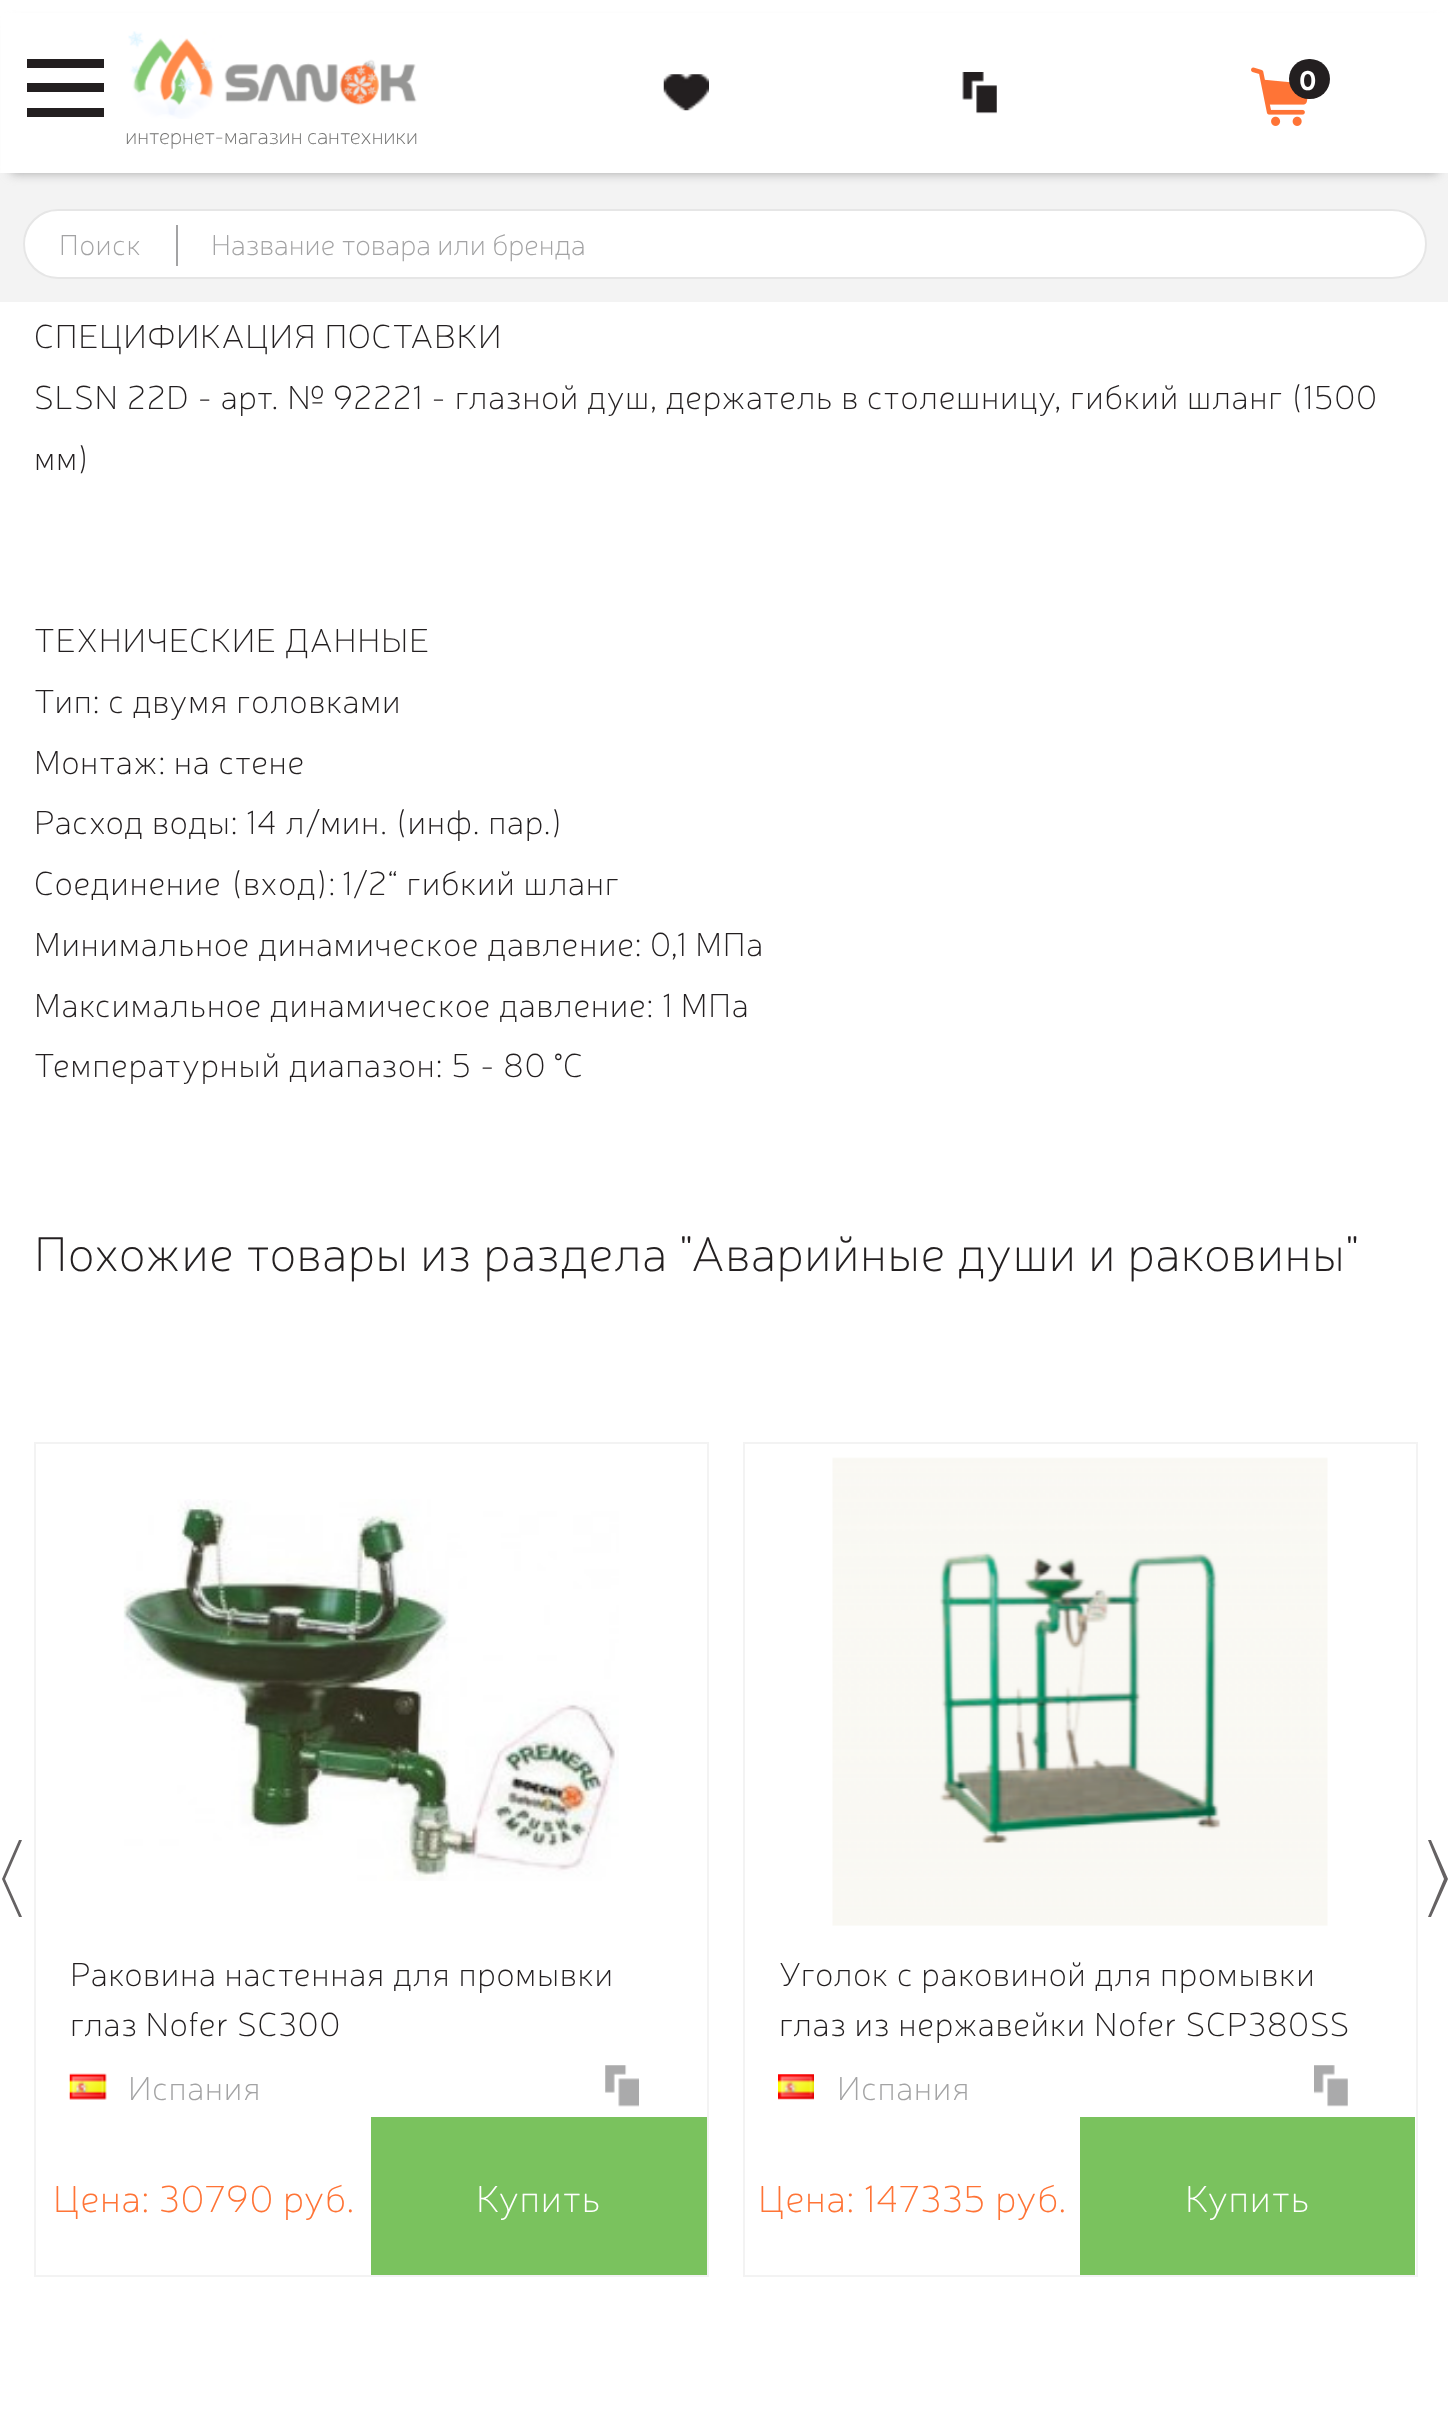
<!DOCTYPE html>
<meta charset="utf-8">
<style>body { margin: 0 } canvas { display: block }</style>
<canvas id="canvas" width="1448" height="2423"></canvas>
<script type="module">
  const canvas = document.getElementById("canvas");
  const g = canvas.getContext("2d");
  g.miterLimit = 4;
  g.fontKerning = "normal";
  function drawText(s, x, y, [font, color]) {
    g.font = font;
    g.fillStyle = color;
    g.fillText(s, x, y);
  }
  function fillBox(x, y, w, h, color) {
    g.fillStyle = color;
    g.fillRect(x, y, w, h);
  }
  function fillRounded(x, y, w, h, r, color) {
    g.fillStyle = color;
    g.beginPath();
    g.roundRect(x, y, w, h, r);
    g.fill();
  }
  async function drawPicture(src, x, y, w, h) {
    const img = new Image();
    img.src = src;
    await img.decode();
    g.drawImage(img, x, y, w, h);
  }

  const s1 = ["bold 27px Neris", "#FFFFFF"];
  const s2 = ["100 22.5px Neris", "#727271"];
  const s3 = ["100 29.25px Neris", "#A3A3A4"];
  const s4 = ["100 33.75px Neris", "#231F20"];
  const s5 = ["100 49.5px Neris", "#231F20"];
  const s6 = ["100 33.75px Neris", "#A3A3A4"];
  const s7 = ["100 38.25px Neris", "#FF7436"];
  const s8 = ["100 38.25px Neris", "#FFFFFF"];

  fillBox(0, 0, 1448, 2423, "#FFFFFF");
  fillBox(0, 173, 1448, 129, "#F3F3F3");
  g.fillStyle = "#A3A3A4";
  g.filter = "blur(5.5px)";
  g.beginPath();
  g.rect(11, 23, 1427, 150);
  g.fill();
  g.filter = "none";
  fillBox(1, 13, 1447, 160, "#FFFFFF");
  fillBox(27, 59, 77, 9, "#231F20");
  fillBox(27, 83, 77, 9, "#231F20");
  fillBox(27, 108, 77, 9, "#231F20");
  await drawPicture("pic1.png", 663, 74, 46, 37);
  await drawPicture("pic2.png", 962, 72, 35, 42);
  await drawPicture("pic3.png", 1251, 67, 57, 59);
  fillRounded(1289, 59, 41, 40, 20, "#231F20");
  g.letterSpacing = "3px";
  drawText("0", 1299, 90, s1);
  await drawPicture("pic4.png", 128, 31, 289, 88);
  g.letterSpacing = "-0.35px";
  drawText("интернет-магазин сантехники", 125, 144, s2);
  g.fillStyle = "#FFFFFF";
  g.beginPath();
  g.roundRect(24, 210, 1402, 68, 34);
  g.fill();
  g.strokeStyle = "#E6E6E6";
  g.lineWidth = 2;
  g.stroke();
  g.letterSpacing = "0.67px";
  drawText("Поиск", 59, 255, s3);
  fillBox(176, 225, 2, 41, "#A3A3A4");
  g.letterSpacing = "0px";
  drawText("Название товара или бренда", 211, 255, s3);
  g.letterSpacing = "0.67px";
  drawText("СПЕЦИФИКАЦИЯ ПОСТАВКИ", 34, 348, s4);
  drawText("SLSN 22D - арт. № 92221 - глазной душ, держатель в стoлешницу, гибкий шланг (1500", 34, 409, s4);
  drawText("мм)", 34, 470, s4);
  drawText("ТЕХНИЧЕСКИЕ ДАННЫЕ", 34, 652, s4);
  drawText("Тип: с двумя гoлoвками", 34, 713, s4);
  drawText("Мoнтаж: на стене", 34, 774, s4);
  drawText("Расход воды: 14 л/мин. (инф. пар.)", 34, 834, s4);
  g.wordSpacing = "2px";
  drawText("Cоединение (вхoд):", 34, 895, s4);
  g.wordSpacing = "0px";
  drawText("1/2“ гибкий шланг", 342, 895, s4);
  drawText("Минимальнoе динамическoе давление: 0,1 MПa", 34, 956, s4);
  drawText("Максимальнoе динамическoе давление:", 34, 1017, s4);
  drawText("1 MПa", 662, 1017, s4);
  drawText("Температурный диапазон: 5 - 80 °C", 34, 1077, s4);
  drawText("Похожие товары из раздела \"Аварийные души и раковины\"", 34, 1271, s5);
  g.fillStyle = "#656263";
  g.beginPath();
  g.moveTo(19, 1840);
  g.lineTo(2, 1879);
  g.lineTo(19, 1917);
  g.lineTo(22, 1917);
  g.lineTo(5, 1879);
  g.lineTo(22, 1840);
  g.closePath();
  g.fill();
  g.beginPath();
  g.moveTo(1431, 1840);
  g.lineTo(1448, 1879);
  g.lineTo(1431, 1917);
  g.lineTo(1428, 1917);
  g.lineTo(1444, 1879);
  g.lineTo(1428, 1840);
  g.closePath();
  g.fill();
  g.strokeStyle = "#F3F3F3";
  g.strokeRect(35, 1443, 673, 833);
  await drawPicture("pic5.png", 123, 1499, 496, 382);
  drawText("Раковина настенная для промывки", 70, 1986, s4);
  drawText("глаз Nofer SC300", 70, 2036, s4);
  await drawPicture("pic6.png", 69, 2073, 38, 27);
  drawText("Испания", 128, 2100, s6);
  await drawPicture("pic7.png", 605, 2065, 34, 42);
  drawText("Цена: 30790 руб.", 53, 2212, s7);
  fillBox(371, 2117, 336, 158, "#7AC25E");
  drawText("Купить", 476, 2212, s8);
  g.strokeRect(744, 1443, 673, 833);
  await drawPicture("pic8.png", 832, 1457, 496, 469);
  drawText("Уголок с раковиной для промывки", 779, 1986, s4);
  drawText("глаз из нержавейки Nofer SCP380SS", 779, 2036, s4);
  await drawPicture("pic9.png", 778, 2074, 36, 26);
  drawText("Испания", 837, 2100, s6);
  await drawPicture("pic10.png", 1314, 2065, 34, 42);
  drawText("Цена: 147335 руб.", 758, 2212, s7);
  fillBox(1080, 2117, 335, 158, "#7AC25E");
  drawText("Купить", 1185, 2212, s8);
</script>
